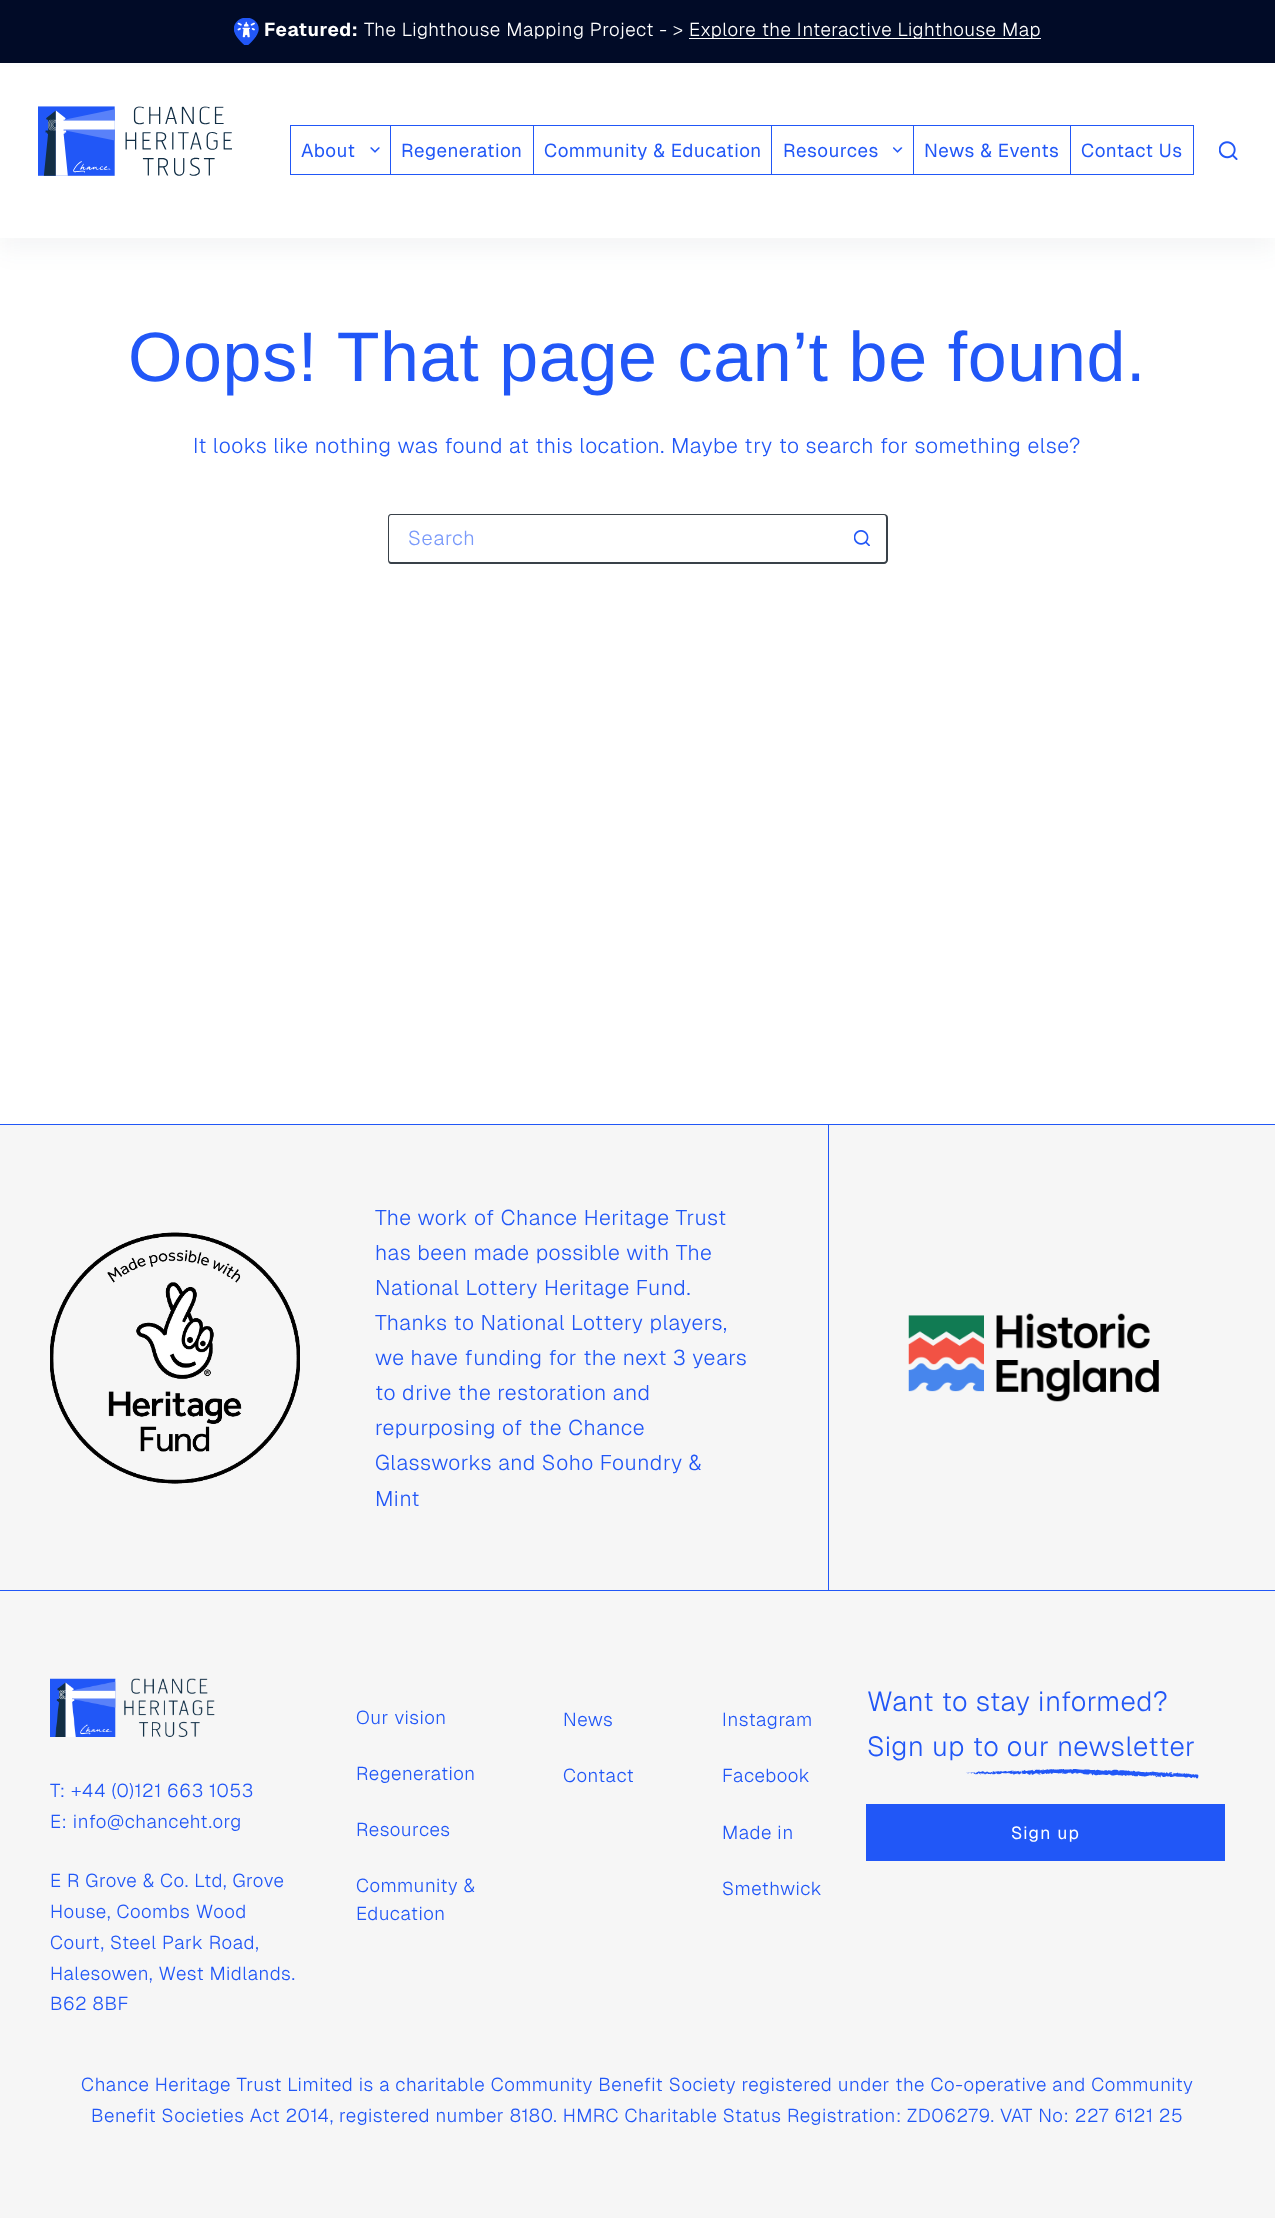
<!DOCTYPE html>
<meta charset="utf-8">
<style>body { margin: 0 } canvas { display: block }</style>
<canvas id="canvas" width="1275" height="2218"></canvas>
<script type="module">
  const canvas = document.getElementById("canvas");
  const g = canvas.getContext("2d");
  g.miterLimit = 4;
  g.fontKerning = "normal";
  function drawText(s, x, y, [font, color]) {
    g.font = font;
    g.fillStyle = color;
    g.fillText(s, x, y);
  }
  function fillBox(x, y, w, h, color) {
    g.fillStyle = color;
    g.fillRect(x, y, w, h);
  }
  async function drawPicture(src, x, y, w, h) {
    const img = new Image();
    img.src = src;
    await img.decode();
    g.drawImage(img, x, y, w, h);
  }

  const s1 = ["bold 18.75px Geist", "#FFFFFF"];
  const s2 = ["300 18.75px Geist", "#FFFFFF"];
  const s3 = ["18.75px Geist", "#2157F7"];
  const s4 = ["70px Liberation Sans", "#2157F7"];
  const s5 = ["300 21.25px Geist", "#2157F7"];
  const s6 = ["300 20px Geist", "#7A9AFA"];
  const s7 = ["300 18.75px Geist", "#2157F7"];
  const s8 = ["300 27.5px Geist", "#2157F7"];
  const s9 = ["17.5px Geist", "#FFFFFF"];

  fillBox(0, 0, 1275, 2218, "#FFFFFF");
  g.fillStyle = "rgba(44, 62, 80, 0.05)";
  g.filter = "blur(12.5px)";
  g.beginPath();
  g.rect(0, 75, 1275, 175);
  g.fill();
  g.filter = "none";
  fillBox(0, 0, 1275, 63, "#010B27");
  await drawPicture("pic1.png", 234, 18, 25, 27);
  g.letterSpacing = "0.62px";
  drawText("Featured:", 264, 36, s1);
  drawText("The Lighthouse Mapping Project - >", 364, 36, s2);
  fillBox(689, 38, 352, 1, "#FFFFFF");
  drawText("Explore the Interactive Lighthouse Map", 689, 36, s2);
  fillBox(0, 67, 1275, 171, "#FFFFFF");
  await drawPicture("pic2.png", 38, 106, 194, 70);
  g.strokeStyle = "#2157F7";
  g.strokeRect(290.5, 125.5, 100, 49);
  drawText("About", 301, 157, s3);
  await drawPicture("pic3.png", 370, 147, 10, 6);
  fillBox(391, 125, 803, 1, "#2157F7");
  fillBox(533, 125, 1, 50, "#2157F7");
  fillBox(391, 174, 143, 1, "#2157F7");
  drawText("Regeneration", 401, 157, s3);
  fillBox(771, 125, 1, 50, "#2157F7");
  fillBox(534, 174, 239, 1, "#2157F7");
  drawText("Community & Education", 544, 157, s3);
  fillBox(913, 125, 1, 50, "#2157F7");
  fillBox(773, 174, 141, 1, "#2157F7");
  drawText("Resources", 783, 157, s3);
  await drawPicture("pic4.png", 893, 147, 10, 6);
  fillBox(1070, 125, 1, 50, "#2157F7");
  fillBox(914, 174, 157, 1, "#2157F7");
  drawText("News & Events", 924, 157, s3);
  fillBox(1193, 125, 1, 50, "#2157F7");
  fillBox(1071, 174, 123, 1, "#2157F7");
  drawText("Contact Us", 1081, 157, s3);
  await drawPicture("pic5.png", 1219, 141, 19, 19);
  drawText("Oops! That page can’t be found.", 128, 381, s4);
  drawText("It looks like nothing was found at this location. Maybe try to search for something else?", 193, 453, s5);
  g.fillStyle = "#394149";
  g.beginPath();
  g.moveTo(391, 514);
  g.lineTo(838, 514);
  g.lineTo(838, 564);
  g.lineTo(391, 564);
  g.bezierCurveTo(389, 564, 388, 562, 388, 560);
  g.lineTo(388, 518);
  g.bezierCurveTo(388, 515, 389, 514, 391, 514);
  g.closePath();
  g.moveTo(391, 515);
  g.lineTo(838, 515);
  g.lineTo(838, 562);
  g.lineTo(391, 562);
  g.bezierCurveTo(390, 562, 389, 561, 389, 560);
  g.lineTo(389, 518);
  g.bezierCurveTo(389, 516, 390, 515, 391, 515);
  g.closePath();
  g.fill("evenodd");
  drawText("Search", 408, 545, s6);
  g.fillStyle = "#394149";
  g.beginPath();
  g.moveTo(838, 514);
  g.lineTo(884, 514);
  g.bezierCurveTo(886, 514, 888, 515, 888, 518);
  g.lineTo(888, 560);
  g.bezierCurveTo(888, 562, 886, 564, 884, 564);
  g.lineTo(838, 564);
  g.closePath();
  g.moveTo(838, 515);
  g.lineTo(884, 515);
  g.bezierCurveTo(885, 515, 886, 516, 886, 518);
  g.lineTo(886, 560);
  g.bezierCurveTo(886, 561, 885, 562, 884, 562);
  g.lineTo(838, 562);
  g.closePath();
  g.fill("evenodd");
  await drawPicture("pic6.png", 854, 530, 16, 16);
  fillBox(0, 1125, 1275, 465, "#F6F6F6");
  fillBox(0, 1124, 1275, 1, "#2157F7");
  fillBox(0, 1590, 1275, 1, "#2157F7");
  fillBox(828, 1125, 1, 465, "#2157F7");
  await drawPicture("pic7.png", 50, 1232, 250, 252);
  drawText("The work of Chance Heritage Trust", 375, 1225, s5);
  drawText("has been made possible with The", 375, 1260, s5);
  drawText("National Lottery Heritage Fund.", 375, 1295, s5);
  drawText("Thanks to National Lottery players,", 375, 1330, s5);
  drawText("we have funding for the next 3 years", 375, 1365, s5);
  drawText("to drive the restoration and", 375, 1400, s5);
  drawText("repurposing of the Chance", 375, 1435, s5);
  drawText("Glassworks and Soho Foundry &", 375, 1470, s5);
  drawText("Mint", 375, 1506, s5);
  await drawPicture("pic8.png", 908, 1313, 251, 89);
  fillBox(0, 1591, 1275, 627, "#F6F6F6");
  await drawPicture("pic9.png", 50, 1678, 165, 59);
  drawText("T: +44 (0)121 663 1053", 50, 1797, s7);
  drawText("E: info@chanceht.org", 50, 1828, s7);
  drawText("E R Grove & Co. Ltd, Grove", 50, 1887, s7);
  drawText("House, Coombs Wood", 50, 1918, s7);
  drawText("Court, Steel Park Road,", 50, 1949, s7);
  drawText("Halesowen, West Midlands.", 50, 1980, s7);
  drawText("B62 8BF", 50, 2010, s7);
  drawText("Our vision", 356, 1724, s7);
  drawText("Regeneration", 356, 1780, s7);
  drawText("Resources", 356, 1836, s7);
  drawText("Community &", 356, 1892, s7);
  drawText("Education", 356, 1920, s7);
  drawText("News", 563, 1726, s7);
  drawText("Contact", 563, 1782, s7);
  drawText("Instagram", 722, 1726, s7);
  drawText("Facebook", 722, 1782, s7);
  drawText("Made in", 722, 1839, s7);
  drawText("Smethwick", 722, 1895, s7);
  drawText("Want to stay informed?", 867, 1711, s8);
  drawText("Sign up to our newsletter", 867, 1756, s8);
  await drawPicture("pic10.png", 966, 1769, 233, 10);
  fillBox(866, 1804, 359, 57, "#2157F7");
  g.letterSpacing = "1.25px";
  drawText("Sign up", 1011, 1839, s9);
  g.letterSpacing = "0.62px";
  drawText("Chance Heritage Trust Limited is a charitable Community Benefit Society registered under the Co-operative and Community", 81, 2091, s7);
  drawText("Benefit Societies Act 2014, registered number 8180. HMRC Charitable Status Registration: ZD06279. VAT No: 227 6121 25", 91, 2122, s7);
</script>
